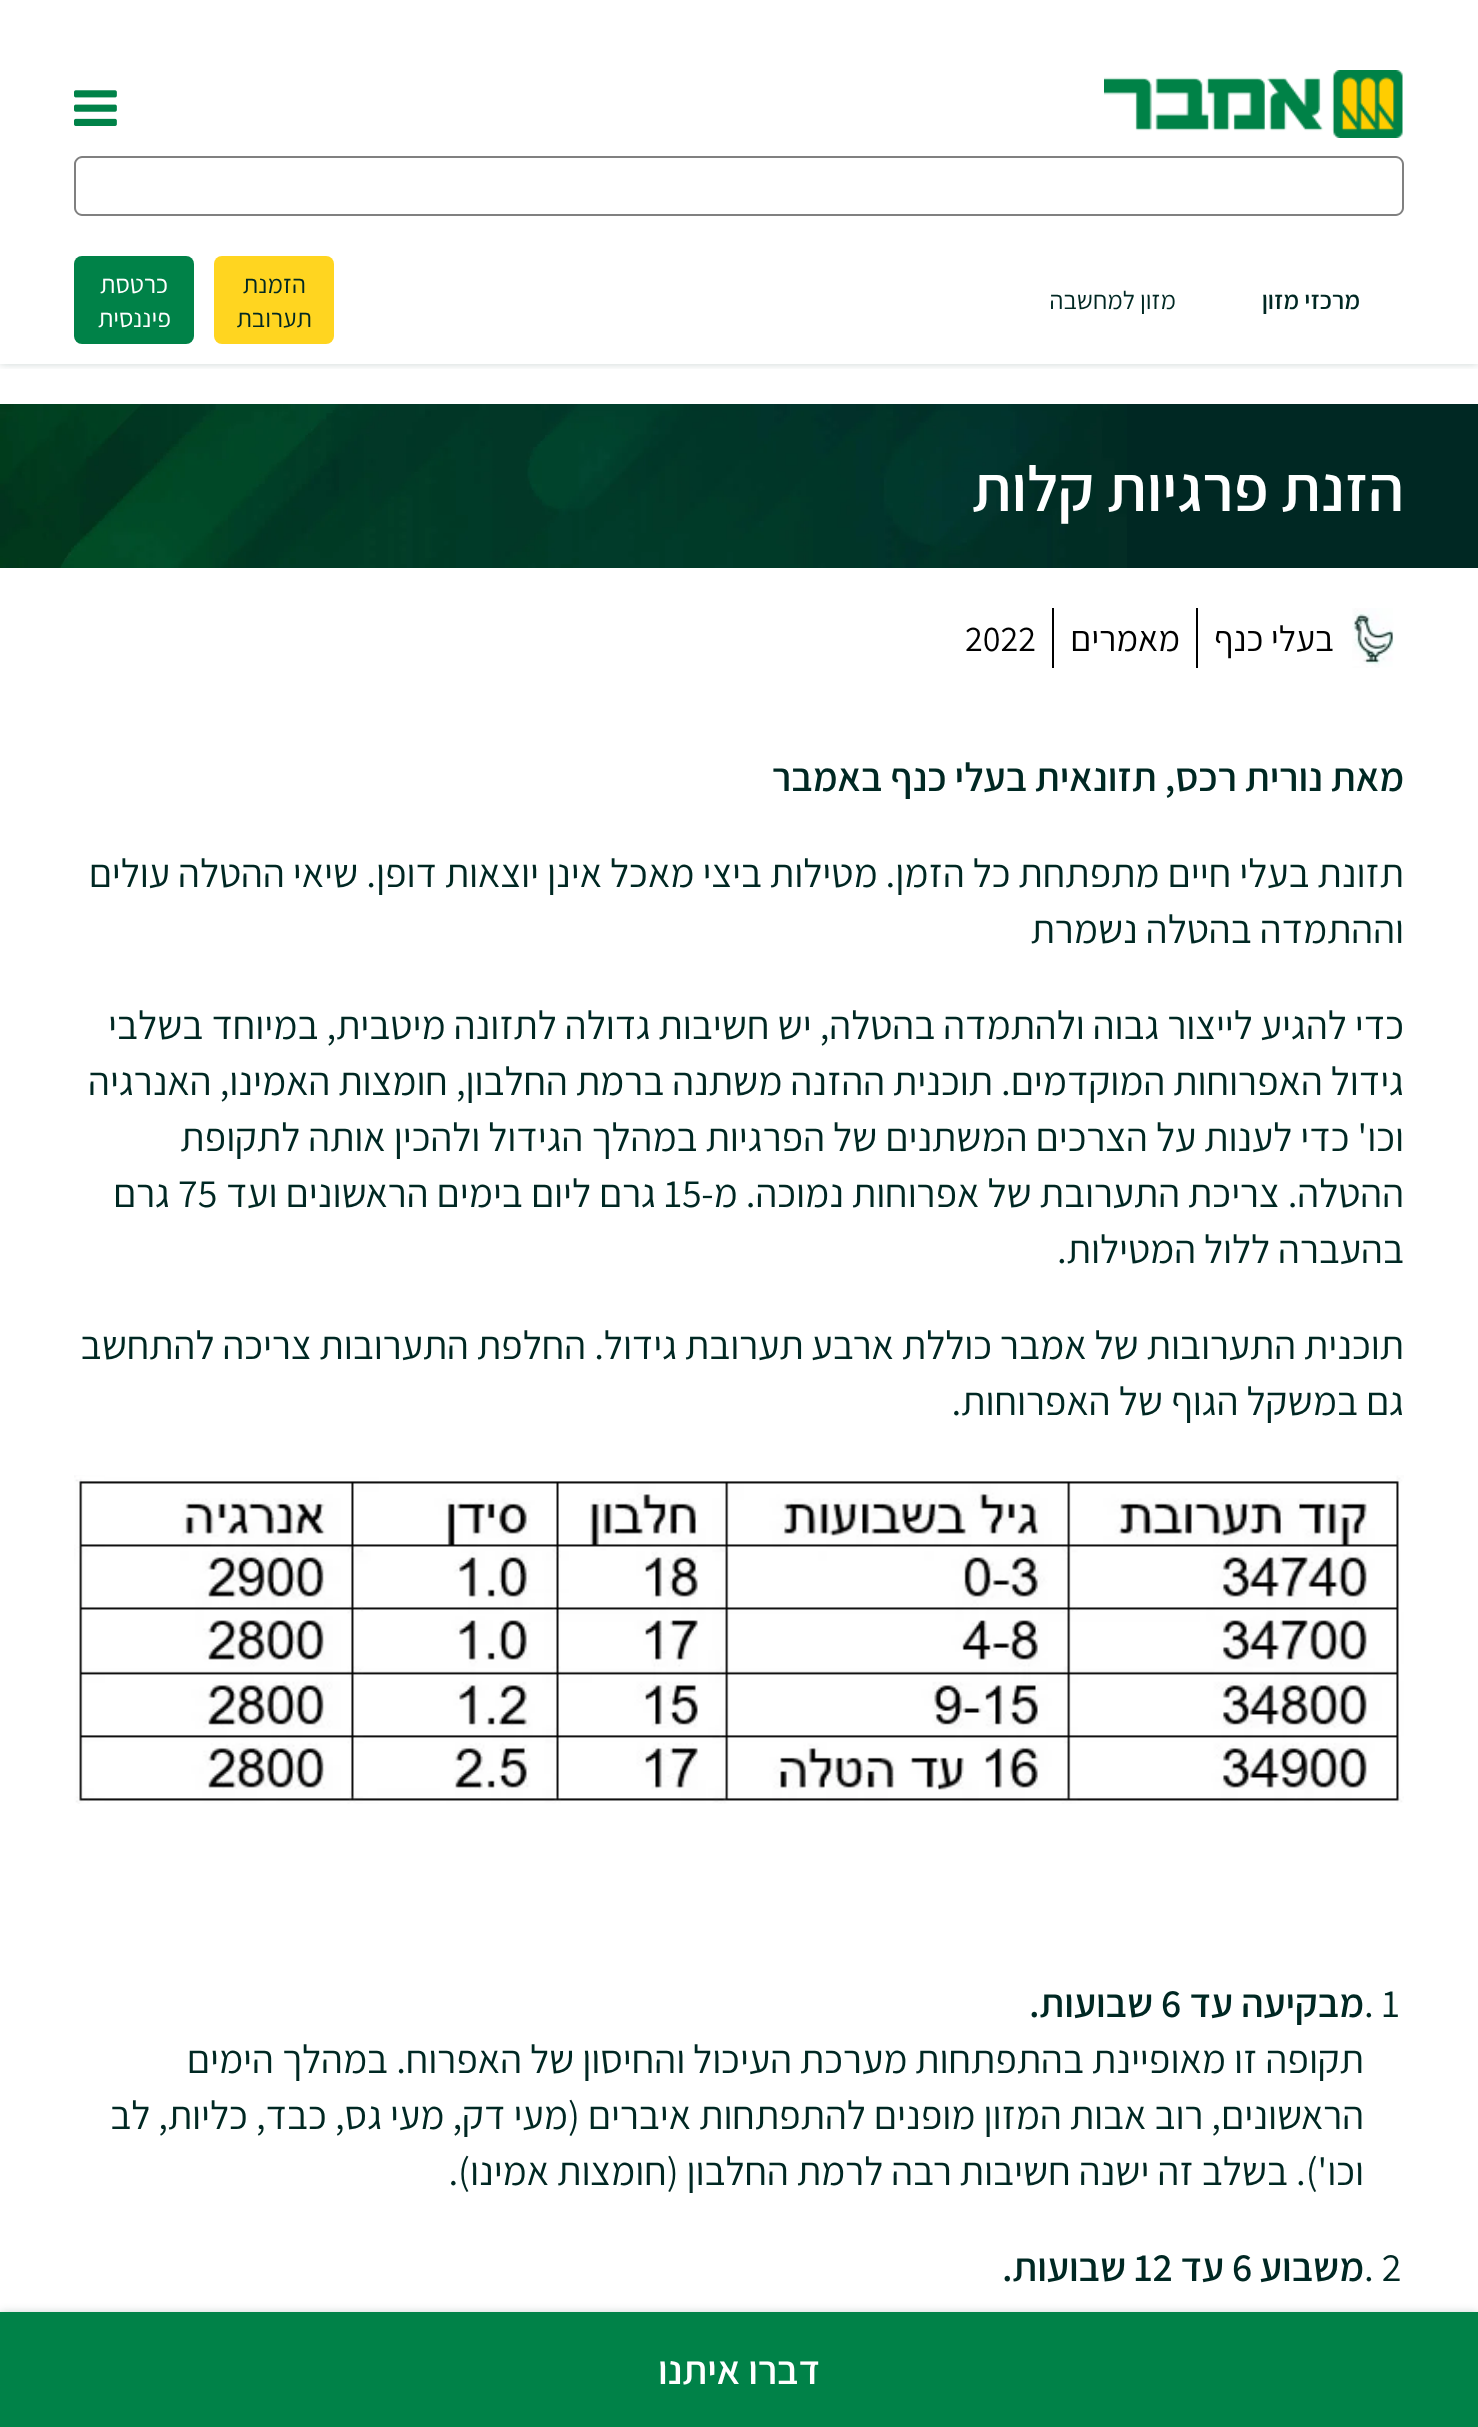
<!DOCTYPE html>
<meta charset="utf-8">
<style>body { margin: 0 } canvas { display: block }</style>
<canvas id="canvas" width="1478" height="2427"></canvas>
<script type="module">
  const canvas = document.getElementById("canvas");
  const g = canvas.getContext("2d");
  g.miterLimit = 4;
  g.fontKerning = "normal";
  function drawText(s, x, y, [font, color]) {
    g.font = font;
    g.fillStyle = color;
    g.fillText(s, x, y);
  }
  function fillBox(x, y, w, h, color) {
    g.fillStyle = color;
    g.fillRect(x, y, w, h);
  }
  function fillRounded(x, y, w, h, r, color) {
    g.fillStyle = color;
    g.beginPath();
    g.roundRect(x, y, w, h, r);
    g.fill();
  }
  async function drawPicture(src, x, y, w, h) {
    const img = new Image();
    img.src = src;
    await img.decode();
    g.drawImage(img, x, y, w, h);
  }

  const s1 = ["600 25.5px Assistant", "#002823"];
  const s2 = ["25.5px Assistant", "#002823"];
  const s3 = ["25.5px Assistant", "#FFFFFF"];
  const s4 = ["600 64px Assistant", "#FFFFFF"];
  const s5 = ["36px Assistant", "#000000"];
  const s6 = ["600 40px Assistant", "#002823"];
  const s7 = ["40px Assistant", "#002823"];
  const s8 = ["600 40px Assistant", "#FFFFFF"];

  fillBox(0, 0, 1478, 2427, "#FFFFFF");
  g.save();
  g.beginPath();
  g.rect(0, 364, 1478, 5);
  g.clip();
  g.fillStyle = "rgba(0, 40, 35, 0.2)";
  g.filter = "blur(4px)";
  g.beginPath();
  g.rect(0, 0, 1478, 364);
  g.fill();
  g.filter = "none";
  g.restore();
  await drawPicture("pic1.png", 1104, 70, 299, 68);
  await drawPicture("pic2.png", 74, 90, 43, 36);
  g.fillStyle = "#808080";
  g.beginPath();
  g.moveTo(1344, 156);
  g.lineTo(1396, 156);
  g.bezierCurveTo(1400, 156, 1404, 160, 1404, 164);
  g.lineTo(1404, 208);
  g.bezierCurveTo(1404, 212, 1400, 216, 1396, 216);
  g.lineTo(1344, 216);
  g.closePath();
  g.moveTo(1344, 158);
  g.lineTo(1396, 158);
  g.bezierCurveTo(1399, 158, 1402, 161, 1402, 164);
  g.lineTo(1402, 208);
  g.bezierCurveTo(1402, 211, 1399, 214, 1396, 214);
  g.lineTo(1344, 214);
  g.closePath();
  g.fill("evenodd");
  g.beginPath();
  g.moveTo(82, 156);
  g.lineTo(1344, 156);
  g.lineTo(1344, 216);
  g.lineTo(82, 216);
  g.bezierCurveTo(78, 216, 74, 212, 74, 208);
  g.lineTo(74, 164);
  g.bezierCurveTo(74, 160, 78, 156, 82, 156);
  g.closePath();
  g.moveTo(82, 158);
  g.lineTo(1344, 158);
  g.lineTo(1344, 214);
  g.lineTo(82, 214);
  g.bezierCurveTo(79, 214, 76, 211, 76, 208);
  g.lineTo(76, 164);
  g.bezierCurveTo(76, 161, 79, 158, 82, 158);
  g.closePath();
  g.fill("evenodd");
  g.direction = "rtl";
  drawText("מרכזי מזון", 1360, 309, s1);
  drawText("מזון למחשבה", 1176, 309, s2);
  fillRounded(214, 256, 120, 88, 8, "#FFD520");
  drawText("הזמנת", 306, 293, s2);
  drawText("תערובת", 312, 327, s2);
  fillRounded(74, 256, 120, 88, 8, "#008248");
  drawText("כרטסת", 168, 293, s3);
  drawText("פיננסית", 171, 327, s3);
  fillBox(1127, 404, 351, 164, "#002823");
  await drawPicture("pic3.png", 0, 404, 1127, 164);
  drawText("הזנת פרגיות קלות", 1404, 511, s4);
  await drawPicture("pic4.png", 1352, 608, 42, 60);
  fillBox(1196, 608, 2, 60, "#000000");
  drawText("בעלי כנף", 1334, 651, s5);
  fillBox(1052, 608, 2, 60, "#000000");
  drawText("מאמרים", 1180, 651, s5);
  g.direction = "ltr";
  drawText("2022", 965, 651, s5);
  g.direction = "rtl";
  drawText("מאת נורית רכס, תזונאית בעלי כנף באמבר", 1404, 791, s6);
  drawText("תזונת בעלי חיים מתפתחת כל הזמן. מטילות ביצי מאכל אינן יוצאות דופן. שיאי ההטלה עולים", 1404, 887, s7);
  drawText("וההתמדה בהטלה נשמרת", 1404, 943, s7);
  drawText("כדי להגיע לייצור גבוה ולהתמדה בהטלה, יש חשיבות גדולה לתזונה מיטבית, במיוחד בשלבי", 1404, 1039, s7);
  drawText("גידול האפרוחות המוקדמים. תוכנית ההזנה משתנה ברמת החלבון, חומצות האמינו, האנרגיה", 1404, 1095, s7);
  drawText("וכו' כדי לענות על הצרכים המשתנים של הפרגיות במהלך הגידול ולהכין אותה לתקופת", 1404, 1151, s7);
  drawText("ההטלה. צריכת התערובת של אפרוחות נמוכה. מ-", 1404, 1207, s7);
  g.direction = "ltr";
  drawText("15", 664, 1207, s7);
  g.direction = "rtl";
  drawText("גרם ליום בימים הראשונים ועד", 656, 1207, s7);
  g.direction = "ltr";
  drawText("75", 178, 1207, s7);
  g.direction = "rtl";
  drawText("גרם", 170, 1207, s7);
  drawText("בהעברה ללול המטילות.", 1404, 1263, s7);
  drawText("תוכנית התערובות של אמבר כוללת ארבע תערובת גידול. החלפת התערובות צריכה להתחשב", 1404, 1359, s7);
  drawText("גם במשקל הגוף של האפרוחות.", 1404, 1415, s7);
  await drawPicture("pic5.png", 74, 1475, 1330, 329);
  g.direction = "ltr";
  drawText(". 1", 1364, 2017, s7);
  g.direction = "rtl";
  drawText("מבקיעה עד", 1364, 2017, s6);
  g.direction = "ltr";
  drawText("6", 1161, 2017, s6);
  g.direction = "rtl";
  drawText("שבועות", 1153, 2017, s6);
  g.direction = "ltr";
  drawText(".", 1029, 2017, s6);
  g.direction = "rtl";
  drawText("תקופה זו מאופיינת בהתפתחות מערכת העיכול והחיסון של האפרוח. במהלך הימים", 1364, 2073, s7);
  drawText("הראשונים, רוב אבות המזון מופנים להתפתחות איברים (מעי דק, מעי גס, כבד, כליות, לב", 1364, 2129, s7);
  drawText("וכו'). בשלב זה ישנה חשיבות רבה לרמת החלבון (חומצות אמינו).", 1364, 2185, s7);
  g.direction = "ltr";
  drawText(". 2", 1364, 2281, s7);
  g.direction = "rtl";
  drawText("משבוע", 1364, 2281, s6);
  g.direction = "ltr";
  drawText("6", 1232, 2281, s6);
  g.direction = "rtl";
  drawText("עד", 1224, 2281, s6);
  g.direction = "ltr";
  drawText("12", 1134, 2281, s6);
  g.direction = "rtl";
  drawText("שבועות.", 1126, 2281, s6);
  g.fillStyle = "rgba(0, 40, 35, 0.2)";
  g.filter = "blur(4px)";
  g.beginPath();
  g.rect(0, 2312, 1478, 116);
  g.fill();
  g.filter = "none";
  fillBox(0, 2312, 1478, 115, "#008248");
  drawText("דברו איתנו", 820, 2384, s8);
</script>
